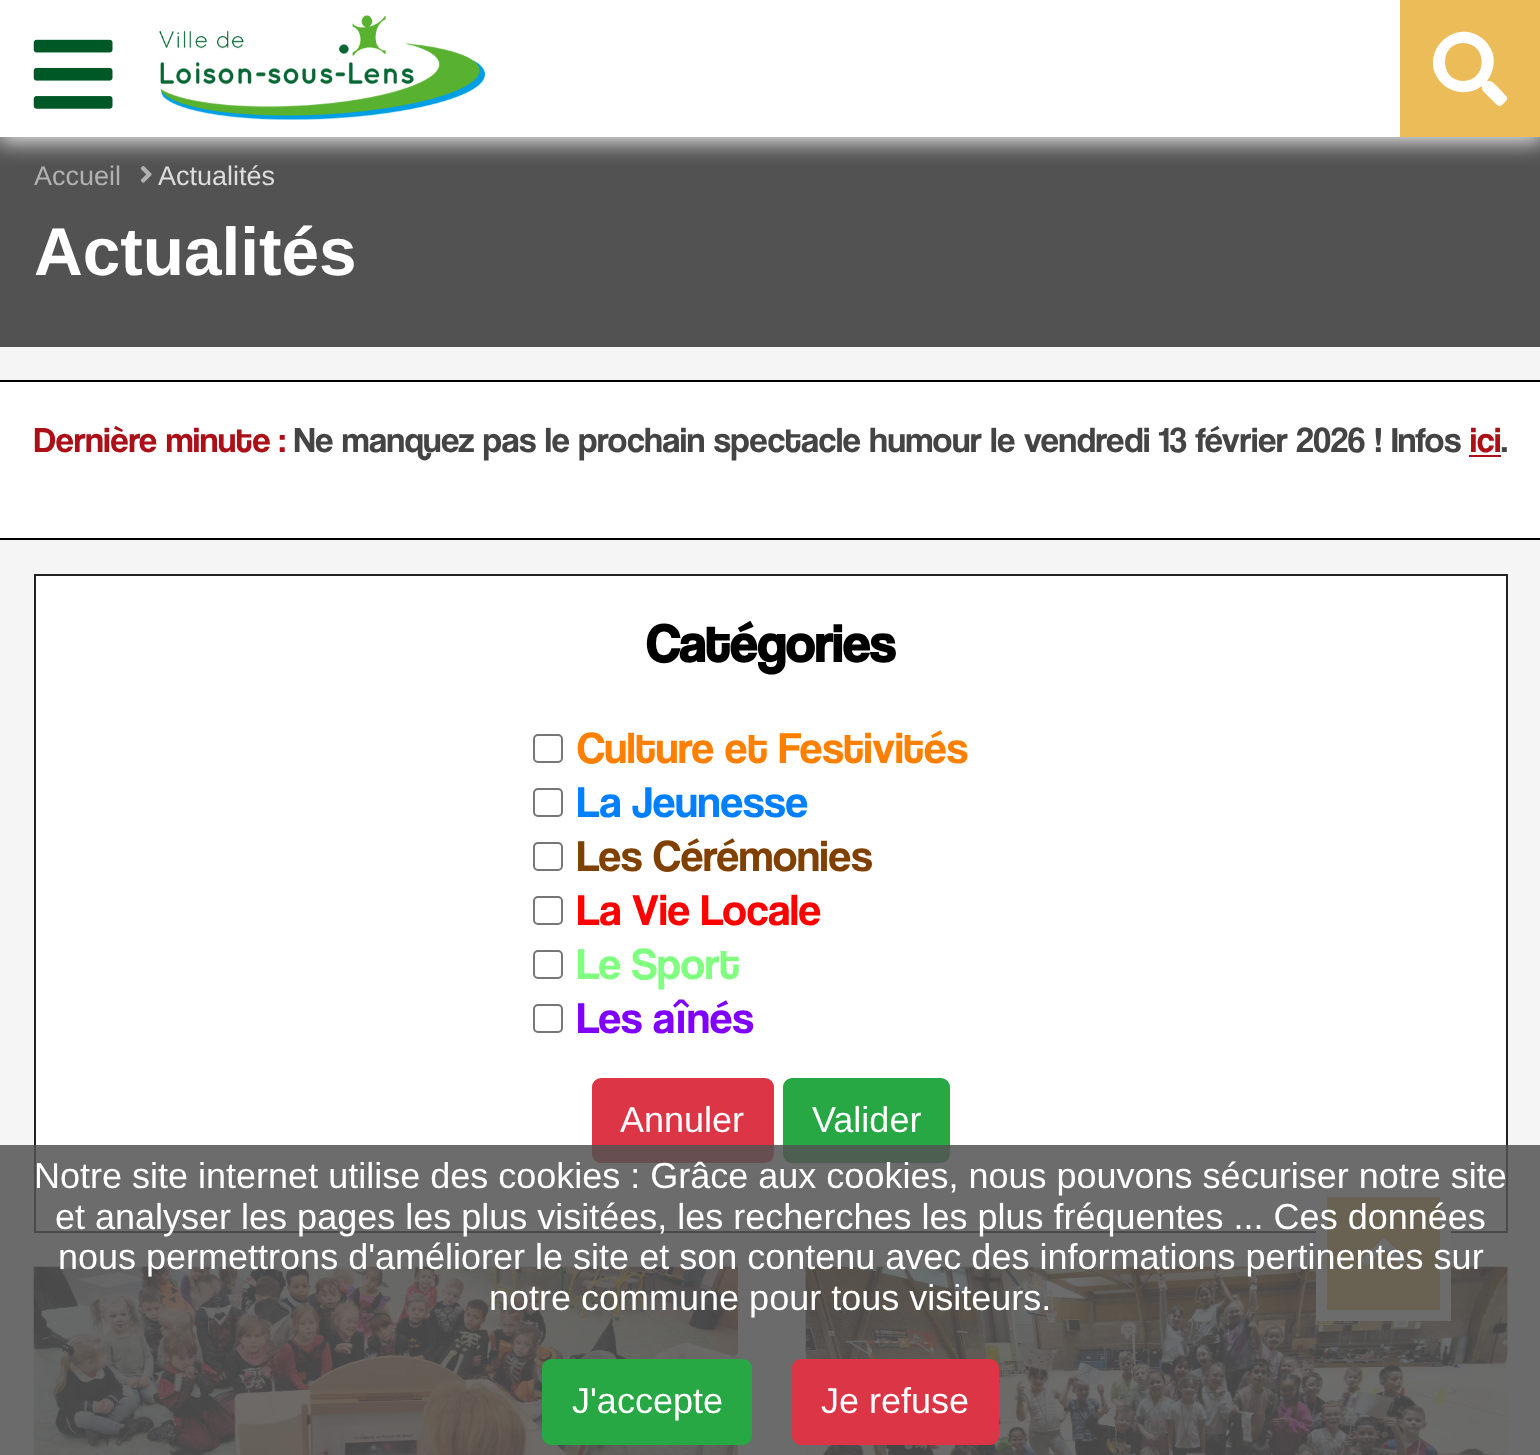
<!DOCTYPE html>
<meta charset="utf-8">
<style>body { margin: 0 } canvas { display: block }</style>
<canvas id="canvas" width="1540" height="1455"></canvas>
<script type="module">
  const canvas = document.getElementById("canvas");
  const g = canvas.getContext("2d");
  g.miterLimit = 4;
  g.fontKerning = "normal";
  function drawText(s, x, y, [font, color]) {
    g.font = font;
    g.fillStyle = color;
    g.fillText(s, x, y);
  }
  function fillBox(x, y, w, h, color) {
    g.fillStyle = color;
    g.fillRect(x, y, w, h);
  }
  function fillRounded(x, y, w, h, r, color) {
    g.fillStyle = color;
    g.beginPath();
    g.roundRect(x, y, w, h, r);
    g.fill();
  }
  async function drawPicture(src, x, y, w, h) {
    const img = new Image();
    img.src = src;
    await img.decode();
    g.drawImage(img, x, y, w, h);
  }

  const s1 = ["27px Liberation Sans", "#B1B1B1"];
  const s2 = ["27px Liberation Sans", "#DDDDDD"];
  const s3 = ["bold 67.5px Liberation Sans", "#FFFFFF"];
  const s4 = ["36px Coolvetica", "#AB0F17"];
  const s5 = ["36px Coolvetica", "#444444"];
  const s6 = ["bold 54px Coolvetica", "#000000"];
  const s7 = ["45px Coolvetica", "#FF8000"];
  const s8 = ["45px Coolvetica", "#0080FF"];
  const s9 = ["45px Coolvetica", "#804000"];
  const s10 = ["45px Coolvetica", "#FF0000"];
  const s11 = ["45px Coolvetica", "#80FF80"];
  const s12 = ["45px Coolvetica", "#8000FF"];
  const s13 = ["36px Liberation Sans", "#FFFFFF"];

  fillBox(0, 0, 1540, 1455, "#F5F5F5");
  fillBox(0, 137, 1540, 210, "#525252");
  await drawPicture("pic3.png", 140, 166, 12, 17);
  g.fillStyle = "#EDEDED";
  g.filter = "blur(11px)";
  g.beginPath();
  g.rect(-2, 0, 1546, 142);
  g.fill();
  g.filter = "none";
  fillBox(0, 0, 1400, 137, "#FFFFFF");
  await drawPicture("pic1.png", 33, 39, 80, 70);
  await drawPicture("pic2.png", 159, 15, 326, 105);
  fillBox(1400, 0, 140, 137, "#EBBC57");
  g.fillStyle = "#FFFFFF";
  g.beginPath();
  g.moveTo(1506, 96);
  g.lineTo(1497, 86);
  g.bezierCurveTo(1492, 82, 1493, 81, 1487, 81);
  g.bezierCurveTo(1493, 73, 1495, 63, 1493, 54);
  g.bezierCurveTo(1491, 48, 1487, 42, 1482, 38);
  g.bezierCurveTo(1456, 18, 1421, 49, 1437, 77);
  g.bezierCurveTo(1446, 93, 1468, 97, 1482, 86);
  g.bezierCurveTo(1482, 90, 1482, 90, 1485, 93);
  g.lineTo(1495, 103);
  g.bezierCurveTo(1499, 107, 1500, 107, 1504, 103);
  g.bezierCurveTo(1506, 101, 1509, 99, 1506, 96);
  g.closePath();
  g.moveTo(1463, 81);
  g.bezierCurveTo(1439, 81, 1439, 43, 1463, 43);
  g.bezierCurveTo(1488, 43, 1488, 81, 1463, 81);
  g.closePath();
  g.fill();
  drawText("Accueil", 34, 185, s1);
  drawText("Actualités", 158, 185, s2);
  drawText("Actualités", 34, 275, s3);
  fillBox(0, 382, 1540, 156, "#FFFFFF");
  fillBox(0, 380, 1540, 2, "#000000");
  fillBox(0, 538, 1540, 2, "#000000");
  drawText("Dernière minute :", 34, 452, s4);
  drawText("Ne manquez pas le prochain spectacle humour le vendredi 13 février 2026 ! Infos", 294, 452, s5);
  drawText("ici", 1470, 452, s4);
  fillBox(1469, 455, 32, 2, "#AB0F17");
  drawText(".", 1501, 452, s5);
  g.fillStyle = "#FFFFFF";
  g.beginPath();
  g.rect(35, 575, 1472, 657);
  g.fill();
  g.strokeStyle = "#222222";
  g.lineWidth = 2;
  g.stroke();
  drawText("Catégories", 646, 662, s6);
  g.beginPath();
  g.roundRect(534, 735, 28, 27, 4);
  g.strokeStyle = "#767676";
  g.stroke();
  drawText("Culture et Festivités", 577, 763, s7);
  g.beginPath();
  g.roundRect(534, 789, 28, 27, 4);
  g.stroke();
  drawText("La Jeunesse", 577, 817, s8);
  g.beginPath();
  g.roundRect(534, 843, 28, 27, 4);
  g.stroke();
  drawText("Les Cérémonies", 577, 871, s9);
  g.beginPath();
  g.roundRect(534, 897, 28, 27, 4);
  g.stroke();
  drawText("La Vie Locale", 577, 925, s10);
  g.beginPath();
  g.roundRect(534, 951, 28, 27, 4);
  g.stroke();
  drawText("Le Sport", 577, 979, s11);
  g.beginPath();
  g.roundRect(534, 1005, 28, 27, 4);
  g.stroke();
  drawText("Les aînés", 577, 1033, s12);
  g.fillStyle = "#DC3545";
  g.beginPath();
  g.roundRect(593, 1079, 180, 83, 8);
  g.fill();
  g.strokeStyle = "#DC3545";
  g.stroke();
  drawText("Annuler", 620, 1132, s13);
  g.fillStyle = "#28A745";
  g.beginPath();
  g.roundRect(784, 1079, 165, 83, 8);
  g.fill();
  g.strokeStyle = "#28A745";
  g.stroke();
  drawText("Valider", 812, 1132, s13);
  await drawPicture("pic4.png", 33, 1266, 705, 189);
  fillRounded(806, 1267, 702, 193, 5, "#FFFFFF");
  await drawPicture("pic5.png", 805, 1266, 703, 189);
  g.fillStyle = "#EBBC57";
  g.beginPath();
  g.rect(1321.5, 1191.5, 124, 124);
  g.fill();
  g.strokeStyle = "#FFFFFF";
  g.lineWidth = 11;
  g.stroke();
  await drawPicture("pic6.png", 1361, 1238, 45, 28);
  fillBox(0, 1145, 1540, 310, "rgba(82, 82, 82, 0.85)");
  drawText("Notre site internet utilise des cookies : Grâce aux cookies, nous pouvons sécuriser notre site", 34, 1188, s13);
  drawText("et analyser les pages les plus visitées, les recherches les plus fréquentes ... Ces données", 55, 1229, s13);
  drawText("nous permettrons d'améliorer le site et son contenu avec des informations pertinentes sur", 58, 1269, s13);
  drawText("notre commune pour tous visiteurs.", 489, 1310, s13);
  g.fillStyle = "#28A745";
  g.beginPath();
  g.roundRect(543, 1360, 208, 84, 8);
  g.fill();
  g.strokeStyle = "#28A745";
  g.lineWidth = 2;
  g.stroke();
  drawText("J'accepte", 572, 1413, s13);
  g.fillStyle = "#DC3545";
  g.beginPath();
  g.roundRect(793, 1360, 205, 84, 8);
  g.fill();
  g.strokeStyle = "#DC3545";
  g.stroke();
  drawText("Je refuse", 821, 1413, s13);
</script>
